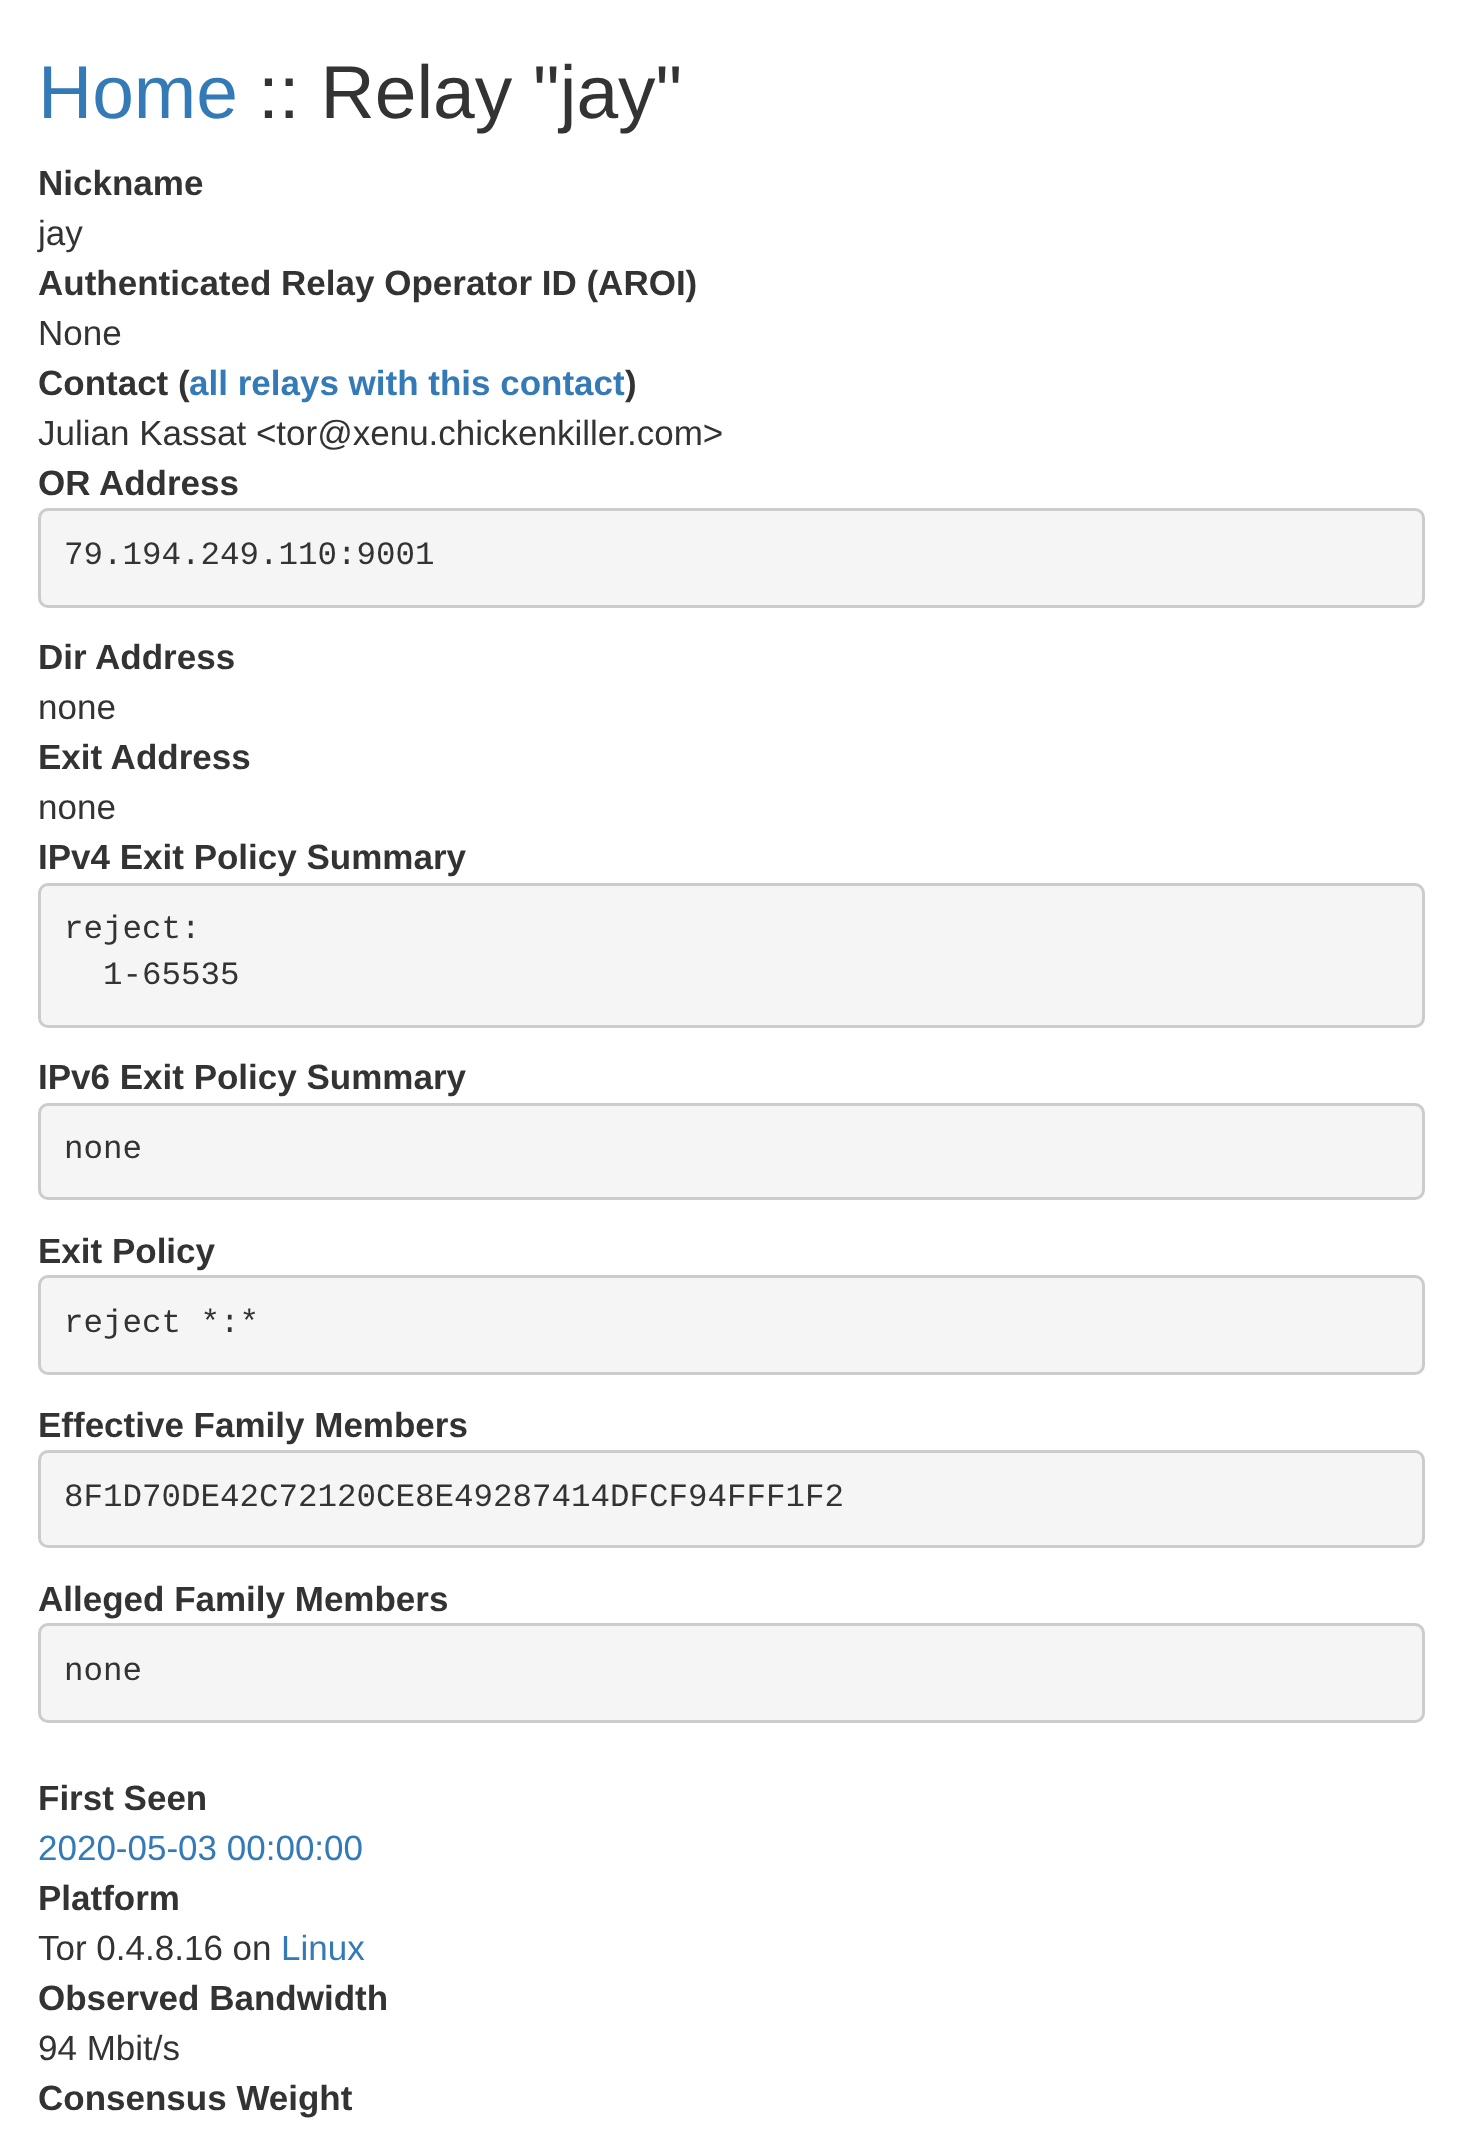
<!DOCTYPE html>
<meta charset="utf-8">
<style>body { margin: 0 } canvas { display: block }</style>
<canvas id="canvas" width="1461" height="2134"></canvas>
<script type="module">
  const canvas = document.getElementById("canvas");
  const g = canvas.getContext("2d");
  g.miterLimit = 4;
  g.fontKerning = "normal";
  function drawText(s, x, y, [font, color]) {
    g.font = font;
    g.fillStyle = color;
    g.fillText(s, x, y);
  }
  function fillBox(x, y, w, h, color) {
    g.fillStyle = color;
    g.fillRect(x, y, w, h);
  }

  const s1 = ["75px Liberation Sans", "#337AB7"];
  const s2 = ["75px Liberation Sans", "#333333"];
  const s3 = ["bold 35px Liberation Sans", "#333333"];
  const s4 = ["35px Liberation Sans", "#333333"];
  const s5 = ["bold 35px Liberation Sans", "#337AB7"];
  const s6 = ["32.5px Liberation Mono", "#333333"];
  const s7 = ["35px Liberation Sans", "#337AB7"];

  fillBox(0, 0, 1461, 2134, "#FFFFFF");
  drawText("Home", 38, 118, s1);
  drawText(":: Relay \"jay\"", 258, 118, s2);
  drawText("Nickname", 38, 195, s3);
  drawText("jay", 38, 245, s4);
  drawText("Authenticated Relay Operator ID (AROI)", 38, 295, s3);
  drawText("None", 38, 345, s4);
  drawText("Contact (", 38, 395, s3);
  drawText("all relays with this contact", 189, 395, s5);
  drawText(")", 625, 395, s3);
  drawText("Julian Kassat <tor@xenu.chickenkiller.com>", 38, 445, s4);
  drawText("OR Address", 38, 495, s3);
  g.fillStyle = "#F5F5F5";
  g.beginPath();
  g.roundRect(39.5, 509.5, 1384, 97, 8.5);
  g.fill();
  g.strokeStyle = "#CCCCCC";
  g.lineWidth = 3;
  g.stroke();
  drawText("79.194.249.110:9001", 64, 564, s6);
  drawText("Dir Address", 38, 669, s3);
  drawText("none", 38, 719, s4);
  drawText("Exit Address", 38, 769, s3);
  drawText("none", 38, 819, s4);
  drawText("IPv4 Exit Policy Summary", 38, 869, s3);
  g.fillStyle = "#F5F5F5";
  g.beginPath();
  g.roundRect(39.5, 884.5, 1384, 142, 8.5);
  g.fill();
  g.stroke();
  drawText("reject:", 64, 938, s6);
  drawText("1-65535", 103, 984, s6);
  drawText("IPv6 Exit Policy Summary", 38, 1089, s3);
  g.fillStyle = "#F5F5F5";
  g.beginPath();
  g.roundRect(39.5, 1104.5, 1384, 94, 8.5);
  g.fill();
  g.stroke();
  drawText("none", 64, 1158, s6);
  drawText("Exit Policy", 38, 1263, s3);
  g.fillStyle = "#F5F5F5";
  g.beginPath();
  g.roundRect(39.5, 1276.5, 1384, 97, 8.5);
  g.fill();
  g.stroke();
  drawText("reject *:*", 64, 1332, s6);
  drawText("Effective Family Members", 38, 1437, s3);
  g.fillStyle = "#F5F5F5";
  g.beginPath();
  g.roundRect(39.5, 1451.5, 1384, 95, 8.5);
  g.fill();
  g.stroke();
  drawText("8F1D70DE42C72120CE8E49287414DFCF94FFF1F2", 64, 1506, s6);
  drawText("Alleged Family Members", 38, 1611, s3);
  g.fillStyle = "#F5F5F5";
  g.beginPath();
  g.roundRect(39.5, 1624.5, 1384, 97, 8.5);
  g.fill();
  g.stroke();
  drawText("none", 64, 1680, s6);
  drawText("First Seen", 38, 1810, s3);
  drawText("2020-05-03 00:00:00", 38, 1860, s7);
  drawText("Platform", 38, 1910, s3);
  drawText("Tor 0.4.8.16 on", 38, 1960, s4);
  drawText("Linux", 281, 1960, s7);
  drawText("Observed Bandwidth", 38, 2010, s3);
  drawText("94 Mbit/s", 38, 2060, s4);
  drawText("Consensus Weight", 38, 2110, s3);
</script>
